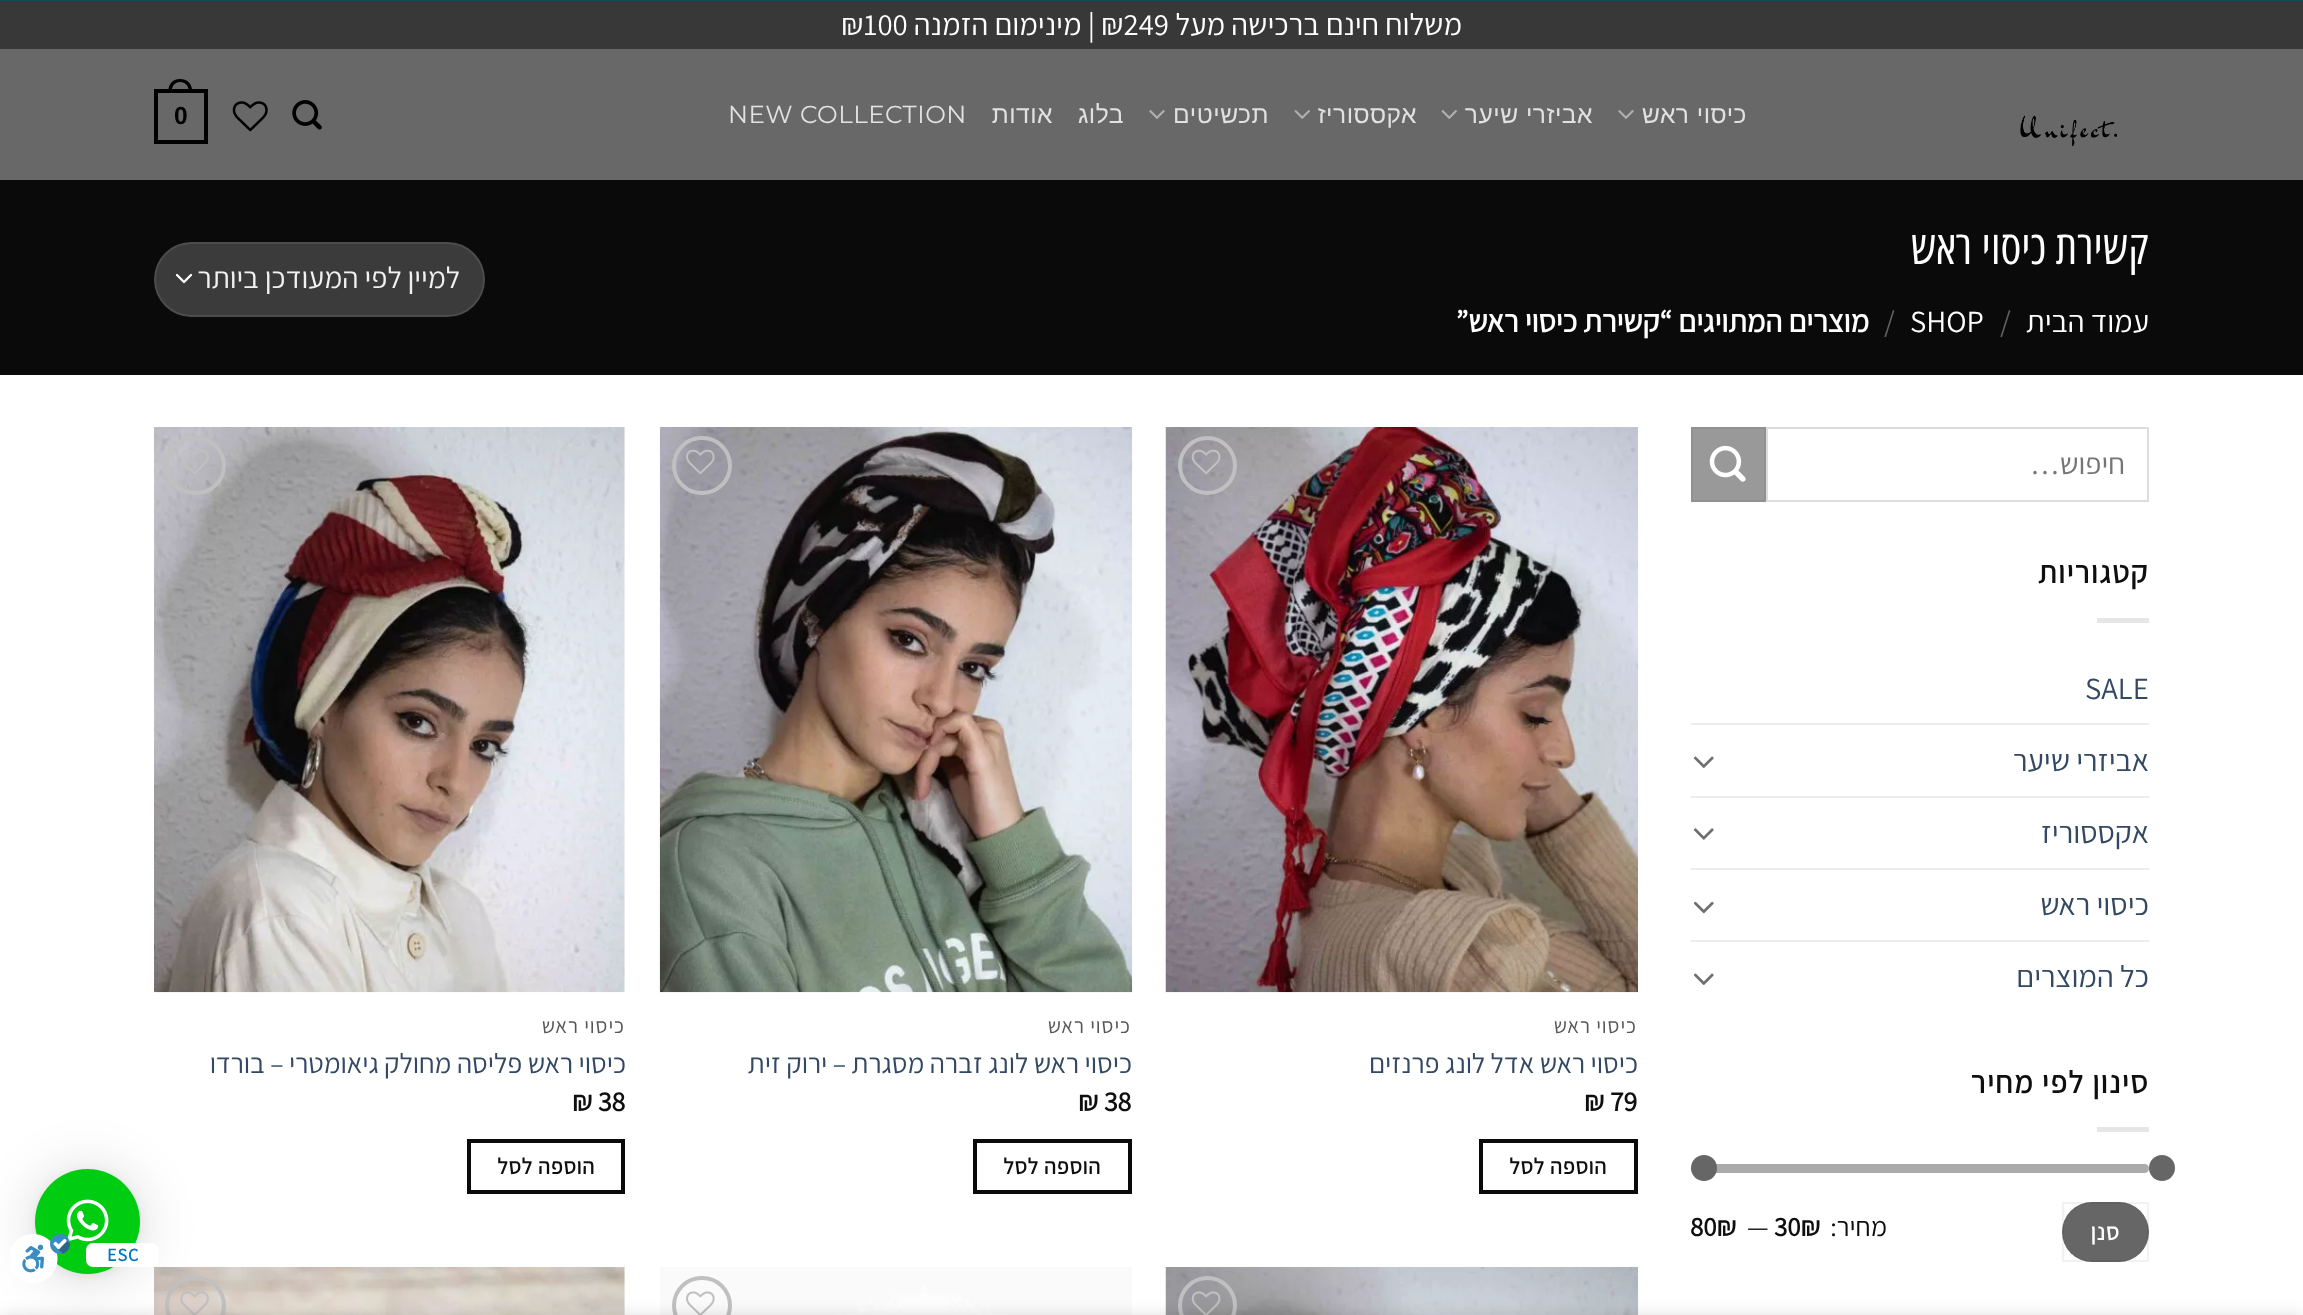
<!DOCTYPE html>
<meta charset="utf-8">
<style>body { margin: 0 } canvas { display: block }</style>
<canvas id="canvas" width="2303" height="1315"></canvas>
<script type="module">
  const canvas = document.getElementById("canvas");
  const g = canvas.getContext("2d");
  g.miterLimit = 4;
  g.fontKerning = "normal";
  function drawText(s, x, y, [font, color]) {
    g.font = font;
    g.fillStyle = color;
    g.fillText(s, x, y);
  }
  function fillBox(x, y, w, h, color) {
    g.fillStyle = color;
    g.fillRect(x, y, w, h);
  }
  function fillRounded(x, y, w, h, r, color) {
    g.fillStyle = color;
    g.beginPath();
    g.roundRect(x, y, w, h, r);
    g.fill();
  }
  async function drawPicture(src, x, y, w, h) {
    const img = new Image();
    img.src = src;
    await img.decode();
    g.drawImage(img, x, y, w, h);
  }

  const s1 = ["200 30.75px Assistant", "#FFFFFF"];
  const s2 = ["24.6px Liberation Sans", "#E1E1E1"];
  const s3 = ["100 24.6px Montserrat", "#E1E1E1"];
  const s4 = ["bold 24.6px Liberation Sans", "#000000"];
  const s5 = ["46.25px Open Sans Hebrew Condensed", "#FFFFFF"];
  const s6 = ["200 30.75px Assistant", "#606060"];
  const s7 = ["bold 30.75px Assistant", "#FFFFFF"];
  const s8 = ["200 29.9px Assistant", "#F1F1F1"];
  const s9 = ["200 29.9px Assistant", "#757575"];
  const s10 = ["bold 30.75px Assistant", "#0F0F0F"];
  const s11 = ["200 30.75px Assistant", "#334862"];
  const s12 = ["bold 23px Assistant", "#FFFFFF"];
  const s13 = ["200 27px Assistant", "#0F0F0F"];
  const s14 = ["bold 27px Assistant", "#0F0F0F"];
  const s15 = ["200 21px Assistant", "#575757"];
  const s16 = ["200 27.75px Assistant", "#334862"];
  const s17 = ["bold 27.75px Assistant", "#0F0F0F"];
  const s18 = ["bold 22px Assistant", "#0F0F0F"];
  const s19 = ["bold 18px Assistant", "#0077C0"];

  fillBox(0, 0, 2303, 1315, "#FFFFFF");
  fillBox(0, 49, 2303, 131, "#686868");
  fillBox(0, 1, 2303, 48, "#383838");
  g.direction = "rtl";
  drawText("משלוח חינם ברכישה מעל", 1462, 35, s1);
  g.direction = "ltr";
  drawText("₪249", 1101, 35, s1);
  g.direction = "rtl";
  drawText("| מינימום הזמנה", 1095, 35, s1);
  g.direction = "ltr";
  drawText("₪100", 841, 35, s1);
  await drawPicture("pic1.png", 2020, 115, 97, 32);
  g.letterSpacing = "0.5px";
  g.direction = "rtl";
  drawText("כיסוי ראש", 1747, 123, s2);
  await drawPicture("pic2.png", 1618, 110, 16, 9);
  drawText("אביזרי שיער", 1593, 123, s2);
  await drawPicture("pic3.png", 1441, 110, 16, 9);
  drawText("אקססוריז", 1417, 123, s2);
  await drawPicture("pic3.png", 1294, 110, 16, 9);
  drawText("תכשיטים", 1269, 123, s2);
  await drawPicture("pic2.png", 1149, 110, 16, 9);
  drawText("בלוג", 1124, 123, s2);
  drawText("אודות", 1053, 123, s2);
  g.direction = "ltr";
  drawText("NEW COLLECTION", 728, 123, s3);
  await drawPicture("pic4.png", 292, 100, 30, 30);
  await drawPicture("pic5.png", 232, 101, 36, 31);
  g.strokeStyle = "#000000";
  g.lineWidth = 4;
  g.strokeRect(156, 91, 50, 51);
  g.fillStyle = "#000000";
  g.beginPath();
  g.moveTo(180, 79);
  g.bezierCurveTo(188.5, 79, 192.5, 85, 192.5, 93);
  g.lineTo(168, 93);
  g.bezierCurveTo(168, 85, 172, 79, 180, 79);
  g.closePath();
  g.moveTo(180, 82);
  g.bezierCurveTo(186.5, 82, 189, 87, 189, 93);
  g.lineTo(171.5, 93);
  g.bezierCurveTo(171.5, 87, 174, 82, 180, 82);
  g.closePath();
  g.fill("evenodd");
  drawText("0", 174, 124, s4);
  fillBox(0, 180, 2303, 195, "#0A0A0A");
  g.letterSpacing = "0px";
  g.direction = "rtl";
  drawText("קשירת כיסוי ראש", 2149, 264, s5);
  drawText("עמוד הבית", 2149, 332, s1);
  g.direction = "ltr";
  drawText("/", 2000, 332, s6);
  drawText("SHOP", 1910, 332, s1);
  drawText("/", 1884, 332, s6);
  g.direction = "rtl";
  drawText("מוצרים המתויגים “קשירת כיסוי ראש”", 1869, 332, s7);
  fillRounded(154, 242, 331, 75, 37.5, "#3B3B3B");
  g.beginPath();
  g.moveTo(177, 275);
  g.lineTo(184, 282);
  g.lineTo(191, 275);
  g.strokeStyle = "#FFFFFF";
  g.lineWidth = 2.3;
  g.lineCap = "round";
  g.lineJoin = "round";
  g.stroke();
  g.beginPath();
  g.roundRect(155, 243, 329, 73, 36.5);
  g.strokeStyle = "rgba(255, 255, 255, 0.09)";
  g.lineWidth = 2;
  g.lineJoin = "miter";
  g.stroke();
  drawText("למיין לפי המעודכן ביותר", 460, 288, s8);
  g.strokeStyle = "#DDDDDD";
  g.strokeRect(1767, 428, 381, 73);
  drawText("חיפוש…", 2125, 474, s9);
  g.fillStyle = "#999999";
  g.beginPath();
  g.rect(1692, 428, 73, 73);
  g.fill();
  g.strokeStyle = "#919191";
  g.stroke();
  await drawPicture("pic6.png", 1709, 445, 37, 37);
  g.letterSpacing = "1.5px";
  drawText("קטגוריות", 2149, 583, s10);
  fillBox(2097, 618, 52, 5, "#E6E6E6");
  g.letterSpacing = "0px";
  g.direction = "ltr";
  drawText("SALE", 2085, 699, s11);
  fillBox(1691, 723, 458, 2, "#ECECEC");
  g.direction = "rtl";
  drawText("אביזרי שיער", 2149, 771, s11);
  await drawPicture("pic7.png", 1693, 756, 21, 12);
  fillBox(1691, 796, 458, 2, "#ECECEC");
  drawText("אקססוריז", 2149, 843, s11);
  await drawPicture("pic8.png", 1693, 828, 21, 12);
  fillBox(1691, 868, 458, 2, "#ECECEC");
  drawText("כיסוי ראש", 2149, 915, s11);
  await drawPicture("pic9.png", 1693, 901, 21, 13);
  fillBox(1691, 940, 458, 2, "#ECECEC");
  drawText("כל המוצרים", 2149, 987, s11);
  await drawPicture("pic7.png", 1693, 973, 21, 12);
  g.letterSpacing = "1.5px";
  drawText("סינון לפי מחיר", 2149, 1093, s10);
  fillBox(2097, 1127, 52, 5, "#E6E6E6");
  fillRounded(1691, 1164, 458, 9, 4.5, "#F1F1F1");
  g.fillStyle = "#666666";
  g.beginPath();
  g.arc(2162, 1168, 13, 0, Math.PI * 2);
  g.fill();
  fillRounded(1691, 1164, 458, 9, 4.5, "rgba(102, 102, 102, 0.5)");
  g.fillStyle = "#666666";
  g.beginPath();
  g.arc(1704, 1168, 13, 0, Math.PI * 2);
  g.fill();
  fillRounded(2062, 1202, 87, 60, 30, "#666666");
  g.strokeStyle = "rgba(0, 0, 0, 0.05)";
  g.strokeRect(2063, 1203, 85, 58);
  g.letterSpacing = "1px";
  drawText("סנן", 2120, 1240, s12);
  g.letterSpacing = "0px";
  drawText("מחיר:", 1887, 1236, s13);
  g.direction = "ltr";
  drawText("30₪", 1774, 1236, s14);
  drawText("—", 1747, 1236, s13);
  drawText("80₪", 1690, 1236, s14);
  await drawPicture("pic10.png", 1165, 427, 473, 566);
  g.beginPath();
  g.arc(1207.5, 465.5, 27.5, 0, Math.PI * 2);
  g.strokeStyle = "#C0C0C0";
  g.lineWidth = 4;
  g.stroke();
  await drawPicture("pic11.png", 1191, 449, 30, 26);
  g.letterSpacing = "1px";
  g.direction = "rtl";
  drawText("כיסוי ראש", 1637, 1033, s15);
  g.letterSpacing = "0px";
  drawText("כיסוי ראש אדל לונג פרנזים", 1638, 1073, s16);
  g.direction = "ltr";
  drawText("₪ 79", 1584, 1111, s17);
  g.strokeStyle = "#0A0A0A";
  g.strokeRect(1481, 1141, 155, 51);
  g.letterSpacing = "0.75px";
  g.direction = "rtl";
  drawText("הוספה לסל", 1607, 1174, s18);
  await drawPicture("pic12.png", 659, 427, 474, 566);
  g.beginPath();
  g.roundRect(674, 438, 56, 55, 27.5);
  g.strokeStyle = "#C0C0C0";
  g.stroke();
  await drawPicture("pic13.png", 686, 449, 29, 26);
  g.letterSpacing = "1px";
  drawText("כיסוי ראש", 1131, 1033, s15);
  g.letterSpacing = "0px";
  drawText("כיסוי ראש לונג זברה מסגרת – ירוק זית", 1132, 1073, s16);
  g.direction = "ltr";
  drawText("₪ 38", 1078, 1111, s17);
  g.strokeStyle = "#0A0A0A";
  g.strokeRect(975, 1141, 155, 51);
  g.letterSpacing = "0.75px";
  g.direction = "rtl";
  drawText("הוספה לסל", 1101, 1174, s18);
  await drawPicture("pic14.png", 154, 427, 471, 566);
  g.beginPath();
  g.roundRect(167, 438, 57, 55, 27.5);
  g.strokeStyle = "#C0C0C0";
  g.stroke();
  await drawPicture("pic15.png", 180, 450, 29, 24);
  g.letterSpacing = "1px";
  drawText("כיסוי ראש", 625, 1033, s15);
  g.letterSpacing = "0px";
  drawText("כיסוי ראש פליסה מחולק גיאומטרי – בורדו", 626, 1073, s16);
  g.direction = "ltr";
  drawText("₪ 38", 572, 1111, s17);
  g.strokeStyle = "#0A0A0A";
  g.strokeRect(469, 1141, 154, 51);
  g.letterSpacing = "0.75px";
  g.direction = "rtl";
  drawText("הוספה לסל", 595, 1174, s18);
  await drawPicture("pic16.png", 1165, 1267, 473, 48);
  g.beginPath();
  g.arc(1207.5, 1305.5, 27.5, 0, Math.PI * 2);
  g.strokeStyle = "#C0C0C0";
  g.stroke();
  await drawPicture("pic17.png", 1191, 1291, 30, 24);
  await drawPicture("pic18.png", 660, 1267, 472, 48);
  g.beginPath();
  g.roundRect(674, 1278, 56, 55, 27.5);
  g.stroke();
  await drawPicture("pic19.png", 686, 1291, 29, 24);
  await drawPicture("pic20.png", 154, 1267, 471, 48);
  g.beginPath();
  g.roundRect(167, 1278, 57, 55, 27.5);
  g.stroke();
  await drawPicture("pic21.png", 180, 1291, 29, 24);
  g.fillStyle = "rgba(0, 0, 0, 0.16)";
  g.filter = "blur(28px)";
  g.beginPath();
  g.roundRect(35, 1173, 105, 105, 52.5);
  g.fill();
  g.filter = "none";
  g.fillStyle = "rgba(0, 0, 0, 0.06)";
  g.filter = "blur(5px)";
  g.beginPath();
  g.roundRect(35, 1171, 105, 105, 52.5);
  g.fill();
  g.filter = "none";
  g.fillStyle = "#00CC11";
  g.beginPath();
  g.arc(87.5, 1221.5, 52.5, 0, Math.PI * 2);
  g.fill();
  await drawPicture("pic22.png", 66, 1199, 43, 43);
  fillBox(0, 0, 2303, 1, "#15495F");
  fillRounded(86, 1243, 73, 24, 7, "#FFFFFF");
  g.letterSpacing = "1px";
  g.direction = "ltr";
  drawText("ESC", 107, 1261, s19);
  await drawPicture("pic23.png", 10, 1234, 60, 49);
  g.fillStyle = "rgba(0, 0, 0, 0.14)";
  g.filter = "blur(8px)";
  g.beginPath();
  g.rect(0, 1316, 2303, 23);
  g.fill();
  g.filter = "none";
</script>
